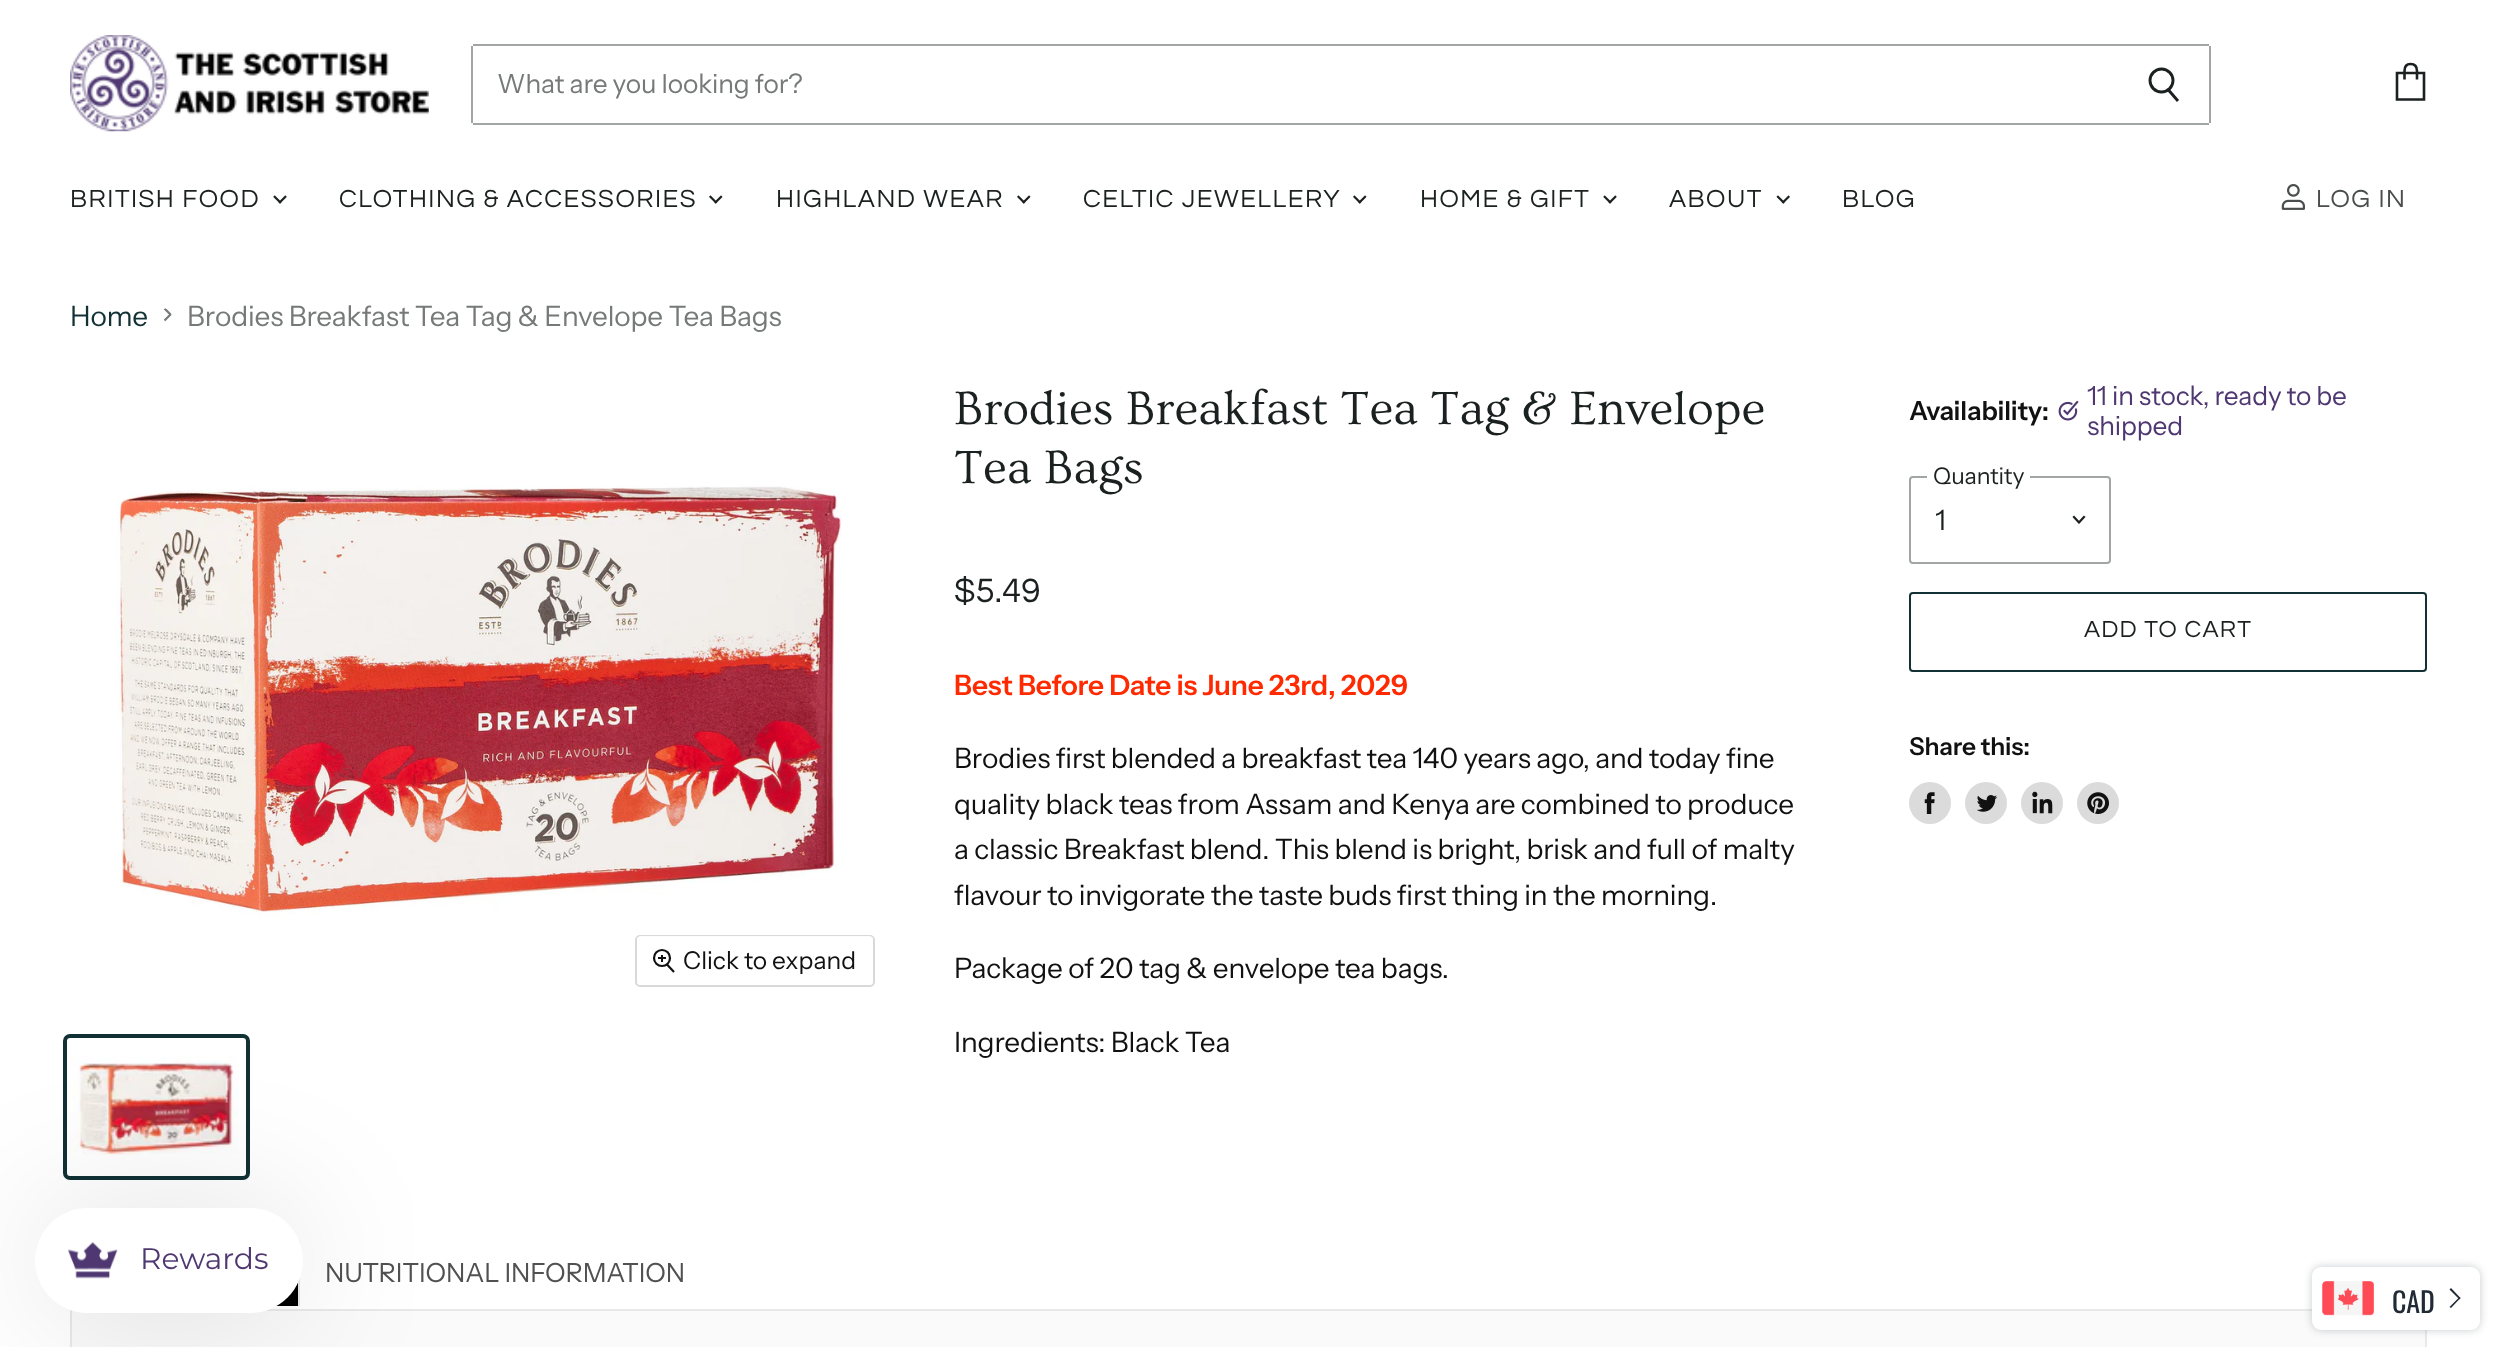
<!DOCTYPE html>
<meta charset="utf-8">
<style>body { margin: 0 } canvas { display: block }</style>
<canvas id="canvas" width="2496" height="1347"></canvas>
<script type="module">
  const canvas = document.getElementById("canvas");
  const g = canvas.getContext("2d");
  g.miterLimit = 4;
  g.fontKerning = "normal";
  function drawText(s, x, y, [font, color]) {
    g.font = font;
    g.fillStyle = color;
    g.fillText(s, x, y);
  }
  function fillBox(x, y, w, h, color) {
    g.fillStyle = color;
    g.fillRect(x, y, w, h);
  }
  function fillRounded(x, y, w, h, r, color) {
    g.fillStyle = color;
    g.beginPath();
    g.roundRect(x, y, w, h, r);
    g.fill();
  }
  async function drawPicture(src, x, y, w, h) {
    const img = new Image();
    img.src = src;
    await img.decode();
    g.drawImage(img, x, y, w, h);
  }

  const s1 = ["26.25px Instrument Sans", "#757977"];
  const s2 = ["25.75px Questrial", "#1B2120"];
  const s3 = ["25.75px Questrial", "#494D4D"];
  const s4 = ["28px Instrument Sans", "#113135"];
  const s5 = ["28px Instrument Sans", "#757977"];
  const s6 = ["24.5px Instrument Sans", "#111111"];
  const s7 = ["49px Ovo", "#1B2120"];
  const s8 = ["35px Questrial", "#1B2120"];
  const s9 = ["600 28px Instrument Sans", "#FF2A00"];
  const s10 = ["28px Instrument Sans", "#111111"];
  const s11 = ["600 26.25px Instrument Sans", "#111111"];
  const s12 = ["26.25px Instrument Sans", "#4F3871"];
  const s13 = ["23px Instrument Sans", "#1B2120"];
  const s14 = ["28px Instrument Sans", "#1B2120"];
  const s15 = ["24.25px Questrial", "#1B2120"];
  const s16 = ["600 24.5px Instrument Sans", "#111111"];
  const s17 = ["26.25px Instrument Sans", "#515151"];
  const s18 = ["29.75px Montserrat", "#4F3871"];
  const s19 = ["28px Oswald", "#212B36"];

  fillBox(0, 0, 2496, 1347, "#FFFFFF");
  await drawPicture("pic1.png", 70, 35, 359, 97);
  fillBox(473, 44, 1736, 2, "#A1A6A4");
  fillBox(2209, 46, 2, 77, "#A1A6A4");
  fillBox(473, 123, 1736, 2, "#A1A6A4");
  g.beginPath();
  g.moveTo(2178, 101);
  g.lineTo(2168.5, 90);
  g.strokeStyle = "#1B2120";
  g.lineWidth = 2.9;
  g.stroke();
  g.beginPath();
  g.arc(2161.5, 80.5, 11.5, 0, Math.PI * 2);
  g.stroke();
  fillBox(471, 46, 2, 77, "#A1A6A4");
  g.letterSpacing = "-0.1px";
  drawText("What are you looking for?", 497, 93, s1);
  g.beginPath();
  g.moveTo(2397, 73);
  g.lineTo(2424, 73);
  g.lineTo(2424, 99.5);
  g.lineTo(2397, 99.5);
  g.closePath();
  g.moveTo(2417, 79.5);
  g.lineTo(2417, 71);
  g.bezierCurveTo(2417, 66, 2414, 64, 2410.5, 64);
  g.bezierCurveTo(2407, 64, 2404.5, 66, 2404.5, 71);
  g.lineTo(2404.5, 79.5);
  g.lineWidth = 2.6;
  g.stroke();
  g.letterSpacing = "1.5px";
  drawText("BRITISH FOOD", 70, 207, s2);
  await drawPicture("pic2.png", 273, 195, 14, 9);
  drawText("CLOTHING & ACCESSORIES", 339, 207, s2);
  await drawPicture("pic3.png", 709, 195, 14, 9);
  drawText("HIGHLAND WEAR", 776, 207, s2);
  await drawPicture("pic3.png", 1017, 195, 14, 9);
  drawText("CELTIC JEWELLERY", 1083, 207, s2);
  await drawPicture("pic3.png", 1353, 195, 14, 9);
  drawText("HOME & GIFT", 1420, 207, s2);
  await drawPicture("pic2.png", 1603, 195, 14, 9);
  drawText("ABOUT", 1669, 207, s2);
  await drawPicture("pic4.png", 1776, 195, 14, 9);
  drawText("BLOG", 1842, 207, s2);
  await drawPicture("pic5.png", 2281, 184, 24, 26);
  drawText("LOG IN", 2316, 207, s3);
  g.letterSpacing = "-0.15px";
  drawText("Home", 70, 326, s4);
  g.save();
  g.beginPath();
  g.moveTo(163, 322.5);
  g.lineTo(163, 308.5);
  g.lineTo(171.5, 308.5);
  g.lineTo(171.5, 322.5);
  g.closePath();
  g.clip();
  g.beginPath();
  g.moveTo(164.5, 320.5);
  g.lineTo(170.5, 314.5);
  g.lineTo(164.5, 308.5);
  g.strokeStyle = "#757977";
  g.lineWidth = 2.2;
  g.stroke();
  g.restore();
  drawText("Brodies Breakfast Tea Tag & Envelope Tea Bags", 187, 326, s5);
  await drawPicture("pic6.png", 116, 486, 726, 429);
  g.beginPath();
  g.roundRect(636, 936, 238, 50, 4);
  g.strokeStyle = "#D9D9D9";
  g.lineWidth = 2;
  g.stroke();
  fillRounded(637, 936, 236, 49, 4, "rgba(255, 255, 255, 0.9)");
  g.beginPath();
  g.moveTo(666.5, 964);
  g.lineTo(674, 972);
  g.strokeStyle = "#111111";
  g.lineWidth = 2.2;
  g.stroke();
  g.beginPath();
  g.arc(662, 958, 8, 0, Math.PI * 2);
  g.stroke();
  fillBox(661, 955, 2, 7, "#111111");
  fillBox(658, 957, 8, 2, "#111111");
  g.letterSpacing = "0px";
  drawText("Click to expand", 683, 969, s6);
  g.beginPath();
  g.roundRect(65, 1036, 183, 142, 5);
  g.strokeStyle = "#113135";
  g.lineWidth = 4;
  g.stroke();
  await drawPicture("pic7.png", 70, 1056, 169, 99);
  drawText("Brodies Breakfast Tea Tag & Envelope", 954, 424, s7);
  drawText("Tea Bags", 954, 483, s7);
  drawText("$5.49", 954, 602, s8);
  g.letterSpacing = "-0.15px";
  drawText("Best Before Date is June 23rd, 2029", 954, 695, s9);
  drawText("Brodies first blended a breakfast tea 140 years ago, and today fine", 954, 768, s10);
  drawText("quality black teas from Assam and Kenya are combined to produce", 954, 814, s10);
  drawText("a classic Breakfast blend. This blend is bright, brisk and full of malty", 954, 859, s10);
  drawText("flavour to invigorate the taste buds first thing in the morning.", 954, 905, s10);
  drawText("Package of 20 tag & envelope tea bags.", 954, 978, s10);
  drawText("Ingredients: Black Tea", 954, 1052, s10);
  drawText("Availability:", 1909, 420, s11);
  await drawPicture("pic8.png", 2058, 400, 21, 21);
  drawText("11 in stock, ready to be", 2087, 405, s12);
  drawText("shipped", 2087, 435, s12);
  g.beginPath();
  g.roundRect(1910, 477, 200, 86, 3);
  g.strokeStyle = "#A1A6A4";
  g.lineWidth = 2;
  g.stroke();
  fillBox(1927, 476, 103, 2, "#FFFFFF");
  drawText("Quantity", 1933, 484, s13);
  g.save();
  g.beginPath();
  g.rect(1936, 504, 110, 32);
  g.clip();
  drawText("1", 1935, 530, s14);
  g.restore();
  g.beginPath();
  g.moveTo(2079, 522.5);
  g.lineTo(2084, 517);
  g.moveTo(2079, 522.5);
  g.lineTo(2074, 517);
  g.strokeStyle = "#1B2120";
  g.lineWidth = 2.2;
  g.lineCap = "square";
  g.stroke();
  g.beginPath();
  g.roundRect(1910, 593, 516, 78, 3);
  g.strokeStyle = "#113135";
  g.lineWidth = 2;
  g.stroke();
  g.letterSpacing = "1.25px";
  drawText("ADD TO CART", 2084, 637, s15);
  g.letterSpacing = "-0.1px";
  drawText("Share this:", 1909, 755, s16);
  g.fillStyle = "#DBDBDB";
  g.beginPath();
  g.arc(1930, 803, 21, 0, Math.PI * 2);
  g.fill();
  await drawPicture("pic9.png", 1924, 792, 11, 22);
  g.beginPath();
  g.arc(1986, 803, 21, 0, Math.PI * 2);
  g.fill();
  await drawPicture("pic10.png", 1976, 795, 22, 17);
  g.beginPath();
  g.arc(2042, 803, 21, 0, Math.PI * 2);
  g.fill();
  await drawPicture("pic11.png", 2032, 791, 21, 23);
  g.beginPath();
  g.arc(2098, 803, 21, 0, Math.PI * 2);
  g.fill();
  await drawPicture("pic12.png", 2087, 792, 22, 22);
  fillBox(298, 1241, 2, 65, "#E9E9E9");
  g.letterSpacing = "-0.15px";
  drawText("NUTRITIONAL INFORMATION", 325, 1282, s17);
  fillBox(276, 1282, 22, 24, "#000000");
  g.fillStyle = "#FAFAFA";
  g.beginPath();
  g.rect(71, 1310, 2355, 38);
  g.fill();
  g.strokeStyle = "#E9E9E9";
  g.stroke();
  g.fillStyle = "rgba(0, 0, 0, 0.12)";
  g.filter = "blur(70px)";
  g.beginPath();
  g.roundRect(35, 1208, 268, 105, 52.5);
  g.fill();
  g.filter = "none";
  fillRounded(35, 1208, 268, 105, 52.5, "#FFFFFF");
  await drawPicture("pic13.png", 67, 1241, 51, 38);
  g.letterSpacing = "0px";
  drawText("Rewards", 140, 1269, s18);
  g.fillStyle = "rgba(33, 43, 54, 0.25)";
  g.filter = "blur(4.5px)";
  g.beginPath();
  g.roundRect(2312, 1267, 168, 63, 9);
  g.fill();
  g.filter = "none";
  fillRounded(2312, 1267, 168, 63, 9, "#FFFFFF");
  await drawPicture("pic14.png", 2322, 1281, 52, 35);
  g.letterSpacing = "-0.15px";
  drawText("CAD", 2392, 1313, s19);
  g.beginPath();
  g.moveTo(2449.5, 1289.5);
  g.lineTo(2451, 1288);
  g.lineTo(2460.5, 1298);
  g.lineTo(2459.5, 1299.5);
  g.closePath();
  g.fill();
  g.beginPath();
  g.moveTo(2449.5, 1307);
  g.lineTo(2459.5, 1297);
  g.lineTo(2460.5, 1298);
  g.lineTo(2451, 1308);
  g.closePath();
  g.fill();
</script>
